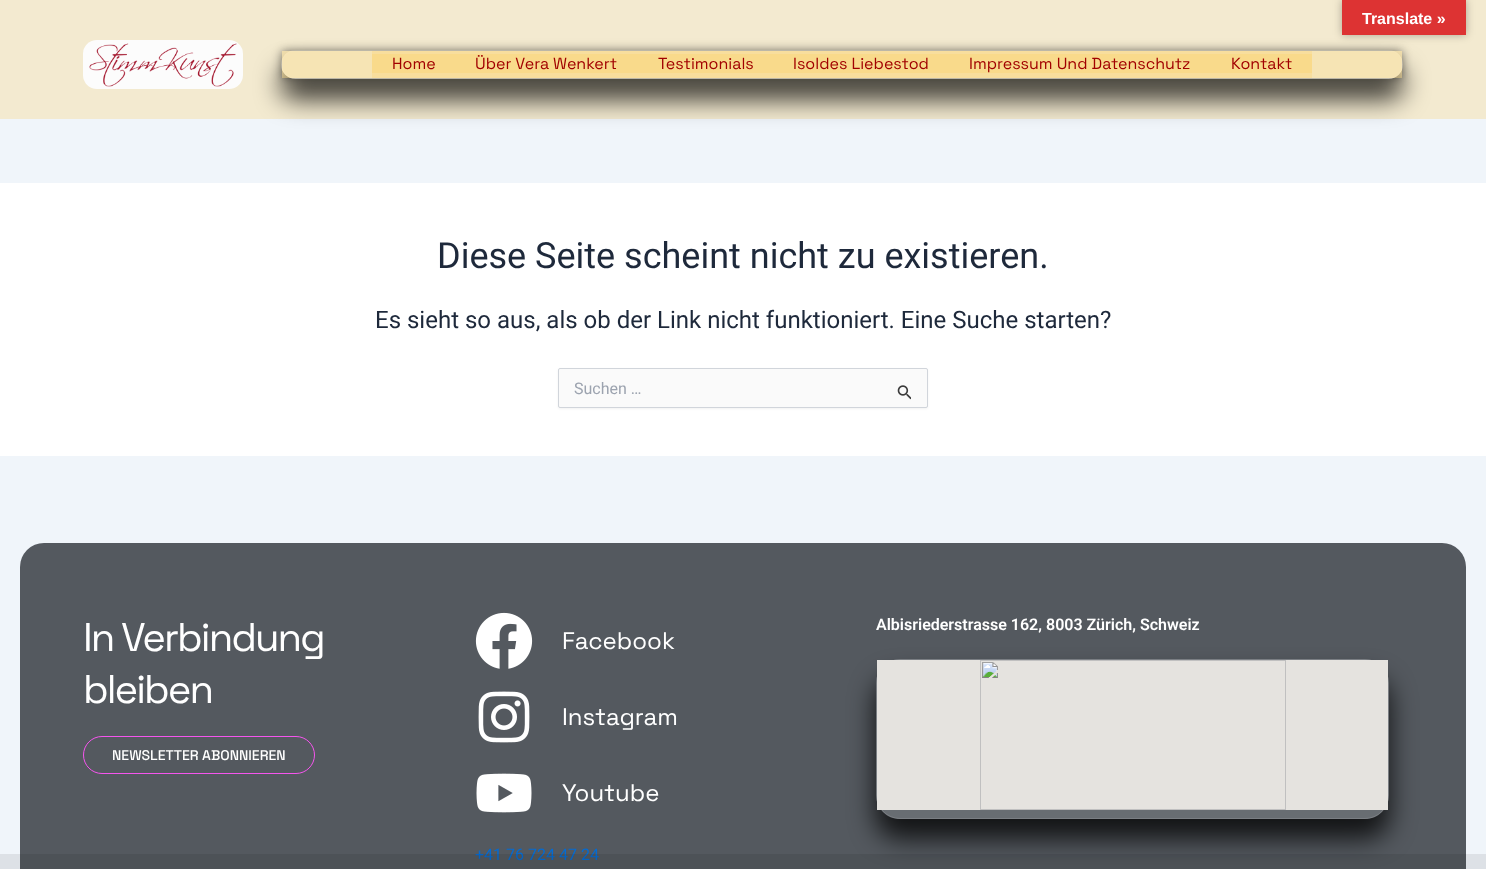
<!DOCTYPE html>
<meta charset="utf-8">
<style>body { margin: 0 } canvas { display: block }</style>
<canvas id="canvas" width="1486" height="869"></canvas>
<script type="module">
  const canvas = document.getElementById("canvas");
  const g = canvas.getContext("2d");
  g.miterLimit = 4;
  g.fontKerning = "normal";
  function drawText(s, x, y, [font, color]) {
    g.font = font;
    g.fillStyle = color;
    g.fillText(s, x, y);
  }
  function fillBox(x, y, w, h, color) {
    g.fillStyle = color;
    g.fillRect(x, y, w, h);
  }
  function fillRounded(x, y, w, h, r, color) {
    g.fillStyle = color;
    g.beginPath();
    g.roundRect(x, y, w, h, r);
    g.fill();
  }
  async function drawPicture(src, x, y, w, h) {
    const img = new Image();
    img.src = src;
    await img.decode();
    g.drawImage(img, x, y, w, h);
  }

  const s1 = ["bold 16px Liberation Sans", "#FFFFFF"];
  const s2 = ["16px Space Grotesk", "#A10000"];
  const s3 = ["36px Roboto", "#1E293B"];
  const s4 = ["24px Roboto", "#1E293B"];
  const s5 = ["16px Roboto", "#9CA3AF"];
  const s6 = ["40px Space Grotesk", "#FFFFFF"];
  const s7 = ["500 14px Space Grotesk", "#FFFFFF"];
  const s8 = ["24px Space Grotesk", "#FFFFFF"];
  const s9 = ["16px Roboto", "#046BD2"];
  const s10 = ["600 16px Roboto", "#FFFFFF"];

  fillBox(0, 0, 1486, 869, "#F0F5FA");
  fillBox(0, 0, 1486, 119, "#F3EAD0");
  g.fillStyle = "rgba(0, 0, 0, 0.3)";
  g.filter = "blur(4.5px)";
  g.beginPath();
  g.rect(1342, 0, 124, 35);
  g.fill();
  g.filter = "none";
  await drawPicture("pic1.png", 83, 40, 160, 49);
  g.save();
  g.beginPath();
  g.moveTo(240, 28);
  g.lineTo(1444, 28);
  g.lineTo(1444, 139);
  g.lineTo(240, 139);
  g.closePath();
  g.moveTo(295.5, 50);
  g.lineTo(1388.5, 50);
  g.bezierCurveTo(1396.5, 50, 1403, 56.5, 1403, 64.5);
  g.bezierCurveTo(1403, 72.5, 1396.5, 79, 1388.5, 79);
  g.lineTo(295.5, 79);
  g.bezierCurveTo(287.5, 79, 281, 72.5, 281, 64.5);
  g.bezierCurveTo(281, 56.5, 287.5, 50, 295.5, 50);
  g.closePath();
  g.clip("evenodd");
  g.fillStyle = "rgba(0, 0, 0, 0.78)";
  g.filter = "blur(13px)";
  g.beginPath();
  g.roundRect(280, 68, 1124, 31, 15.5);
  g.fill();
  g.filter = "none";
  g.restore();
  fillBox(1342, 0, 124, 35, "#DD3333");
  drawText("Translate »", 1362, 24, s1);
  fillRounded(281, 50, 1122, 29, 14.5, "rgba(255, 255, 255, 0.12)");
  g.beginPath();
  g.roundRect(281.5, 50.5, 1121, 28, 14);
  g.strokeStyle = "rgba(255, 255, 255, 0.12)";
  g.stroke();
  g.save();
  g.beginPath();
  g.moveTo(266, 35);
  g.lineTo(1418, 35);
  g.lineTo(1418, 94);
  g.lineTo(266, 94);
  g.closePath();
  g.moveTo(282, 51);
  g.lineTo(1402, 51);
  g.lineTo(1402, 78);
  g.lineTo(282, 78);
  g.closePath();
  g.clip("evenodd");
  g.fillStyle = "rgba(0, 0, 0, 0.5)";
  g.filter = "blur(5px)";
  g.beginPath();
  g.rect(282, 51, 1120, 27);
  g.fill();
  g.filter = "none";
  g.restore();
  fillBox(282, 51, 1120, 27, "rgba(252, 204, 85, 0.25)");
  fillBox(372, 51, 940, 27, "#F8DE9D");
  fillBox(372, 54, 940, 19, "#F9DA8B");
  drawText("Home", 392, 69, s2);
  drawText("Über Vera Wenkert", 475, 69, s2);
  drawText("Testimonials", 658, 69, s2);
  drawText("Isoldes Liebestod", 793, 69, s2);
  drawText("Impressum Und Datenschutz", 969, 69, s2);
  drawText("Kontakt", 1231, 69, s2);
  fillBox(0, 183, 1486, 273, "#FFFFFF");
  drawText("Diese Seite scheint nicht zu existieren.", 437, 268, s3);
  drawText("Es sieht so aus, als ob der Link nicht funktioniert. Eine Suche starten?", 375, 328, s4);
  g.fillStyle = "rgba(0, 0, 0, 0.05)";
  g.filter = "blur(1px)";
  g.beginPath();
  g.roundRect(558, 369, 370, 40, 2);
  g.fill();
  g.filter = "none";
  g.fillStyle = "#FAFAFA";
  g.beginPath();
  g.roundRect(558.5, 368.5, 369, 39, 1.5);
  g.fill();
  g.strokeStyle = "#D1D5DB";
  g.stroke();
  drawText("Suchen …", 574, 394, s5);
  await drawPicture("pic2.png", 897, 385, 14, 15);
  fillRounded(20, 543, 1446, 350, 24, "#54595F");
  g.letterSpacing = "-2px";
  drawText("In Verbindung", 83, 651, s6);
  drawText("bleiben", 83, 703, s6);
  g.beginPath();
  g.roundRect(83.5, 736.5, 231, 37, 18.5);
  g.strokeStyle = "#F655EE";
  g.stroke();
  g.letterSpacing = "0px";
  drawText("NEWSLETTER ABONNIEREN", 112, 760, s7);
  await drawPicture("pic3.png", 475, 612, 58, 57);
  drawText("Facebook", 562, 649, s8);
  await drawPicture("pic4.png", 478, 691, 52, 52);
  drawText("Instagram", 562, 725, s8);
  await drawPicture("pic5.png", 476, 773, 56, 40);
  drawText("Youtube", 562, 801, s8);
  drawText("+41 76 724 47 24", 475, 860, s9);
  drawText("Albisriederstrasse 162, 8003 Zürich, Schweiz", 876, 630, s10);
  g.save();
  g.beginPath();
  g.moveTo(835, 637);
  g.lineTo(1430, 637);
  g.lineTo(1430, 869);
  g.lineTo(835, 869);
  g.closePath();
  g.moveTo(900, 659);
  g.lineTo(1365, 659);
  g.bezierCurveTo(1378.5, 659, 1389, 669.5, 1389, 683);
  g.lineTo(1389, 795);
  g.bezierCurveTo(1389, 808.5, 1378.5, 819, 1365, 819);
  g.lineTo(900, 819);
  g.bezierCurveTo(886.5, 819, 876, 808.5, 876, 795);
  g.lineTo(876, 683);
  g.bezierCurveTo(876, 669.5, 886.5, 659, 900, 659);
  g.closePath();
  g.clip("evenodd");
  g.fillStyle = "rgba(0, 0, 0, 0.78)";
  g.filter = "blur(13px)";
  g.beginPath();
  g.roundRect(875, 677, 515, 162, 25);
  g.fill();
  g.filter = "none";
  g.restore();
  fillRounded(876, 659, 513, 160, 24, "rgba(255, 255, 255, 0.12)");
  g.beginPath();
  g.roundRect(876.5, 659.5, 512, 159, 23.5);
  g.strokeStyle = "rgba(255, 255, 255, 0.12)";
  g.stroke();
  await drawPicture("pic6.png", 877, 660, 511, 150);
  fillBox(0, 854, 1486, 15, "rgba(0, 0, 0, 0.08)");
</script>
